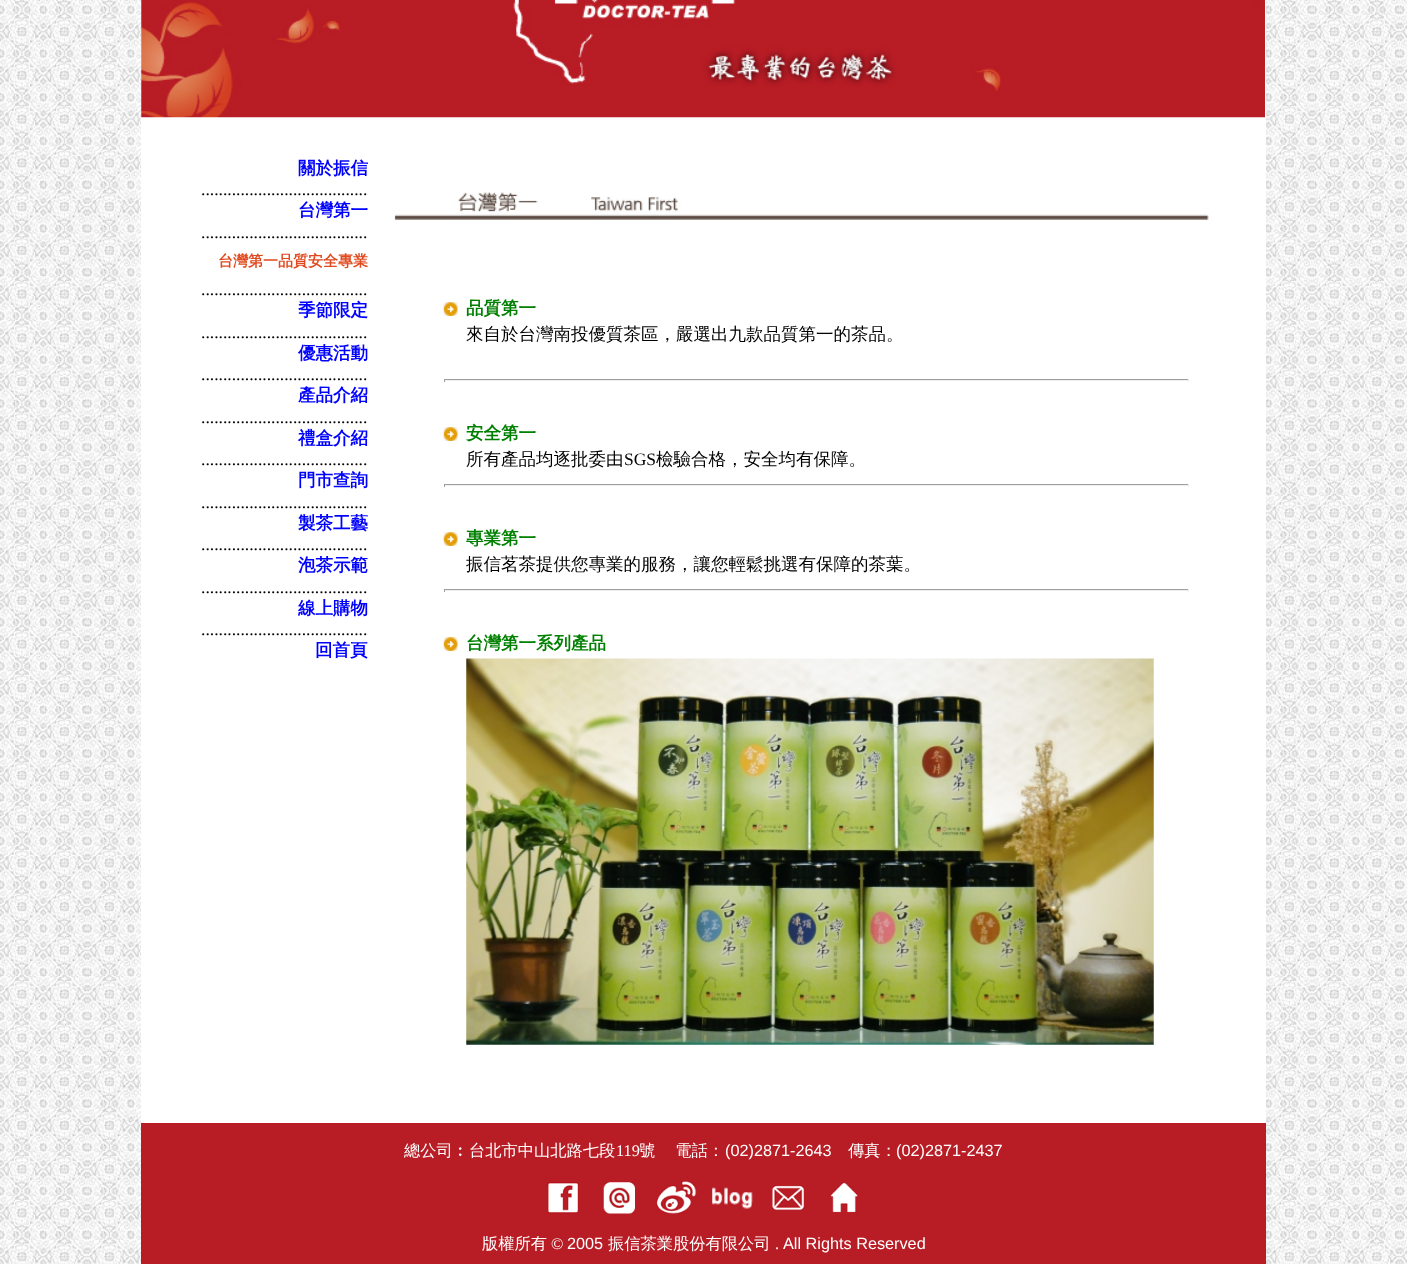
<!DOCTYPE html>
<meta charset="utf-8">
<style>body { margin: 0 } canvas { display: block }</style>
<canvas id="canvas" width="1407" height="1264"></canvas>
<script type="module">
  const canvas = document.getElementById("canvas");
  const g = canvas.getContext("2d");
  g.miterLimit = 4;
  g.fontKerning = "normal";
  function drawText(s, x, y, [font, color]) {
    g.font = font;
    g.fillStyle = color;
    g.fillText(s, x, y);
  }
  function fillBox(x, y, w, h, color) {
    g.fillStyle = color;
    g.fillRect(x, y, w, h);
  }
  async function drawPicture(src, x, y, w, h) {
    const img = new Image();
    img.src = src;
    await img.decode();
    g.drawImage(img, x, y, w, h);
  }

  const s1 = ["bold 17.5px WenQuanYi Zen Hei", "#0000FF"];
  const s2 = ["17.5px Liberation Serif", "#000000"];
  const s3 = ["bold 15px WenQuanYi Zen Hei", "#E1491E"];
  const s4 = ["bold 17.5px WenQuanYi Zen Hei", "#008000"];
  const s5 = ["500 17.5px WenQuanYi Zen Hei", "#000000"];
  const s6 = ["500 16.25px WenQuanYi Zen Hei", "#FFFFFF"];
  const s7 = ["16.25px Liberation Serif", "#FFFFFF"];
  const s8 = ["16.25px Liberation Sans", "#FFFFFF"];

  fillBox(0, 0, 1407, 1264, "#FFFFFF");
  await drawPicture("pic1.png", 0, 0, 1407, 1264);
  fillBox(141, 0, 1125, 138, "#FFFFFF");
  await drawPicture("pic2.png", 141, 0, 1124, 118);
  fillBox(141, 138, 1125, 985, "#FFFFFF");
  drawText("關於振信", 298, 174, s1);
  drawText("......................................", 201, 195, s2);
  drawText("台灣第一", 298, 216, s1);
  drawText("......................................", 201, 238, s2);
  drawText("台灣第一品質安全專業", 218, 266, s3);
  drawText("......................................", 201, 295, s2);
  drawText("季節限定", 298, 316, s1);
  drawText("......................................", 201, 338, s2);
  drawText("優惠活動", 298, 359, s1);
  drawText("......................................", 201, 380, s2);
  drawText("產品介紹", 298, 401, s1);
  drawText("......................................", 201, 423, s2);
  drawText("禮盒介紹", 298, 444, s1);
  drawText("......................................", 201, 465, s2);
  drawText("門市查詢", 298, 486, s1);
  drawText("......................................", 201, 508, s2);
  drawText("製茶工藝", 298, 529, s1);
  drawText("......................................", 201, 550, s2);
  drawText("泡茶示範", 298, 571, s1);
  drawText("......................................", 201, 593, s2);
  drawText("線上購物", 298, 614, s1);
  drawText("......................................", 201, 635, s2);
  drawText("回首頁", 315, 656, s1);
  await drawPicture("pic3.png", 394, 192, 815, 28);
  await drawPicture("pic4.png", 443, 302, 15, 14);
  drawText("品質第一", 466, 314, s4);
  drawText("來自於台灣南投優質茶區，嚴選出九款品質第一的茶品。", 466, 340, s5);
  fillBox(444, 379, 745, 1, "#9F9F9F");
  fillBox(1188, 379, 1, 3, "#EEEEEE");
  fillBox(444, 380, 745, 1, "#EEEEEE");
  fillBox(444, 379, 1, 3, "#9F9F9F");
  await drawPicture("pic4.png", 443, 427, 15, 14);
  drawText("安全第一", 466, 439, s4);
  drawText("所有產品均逐批委由", 466, 465, s5);
  drawText("SGS", 624, 465, s2);
  drawText("檢驗合格，安全均有保障。", 656, 465, s5);
  fillBox(444, 484, 745, 1, "#9F9F9F");
  fillBox(1188, 484, 1, 3, "#EEEEEE");
  fillBox(444, 485, 745, 1, "#EEEEEE");
  fillBox(444, 484, 1, 3, "#9F9F9F");
  await drawPicture("pic4.png", 443, 532, 15, 14);
  drawText("專業第一", 466, 544, s4);
  drawText("振信茗茶提供您專業的服務，讓您輕鬆挑選有保障的茶葉。", 466, 570, s5);
  fillBox(444, 589, 745, 1, "#9F9F9F");
  fillBox(1188, 589, 1, 3, "#EEEEEE");
  fillBox(444, 590, 745, 1, "#EEEEEE");
  fillBox(444, 589, 1, 3, "#9F9F9F");
  await drawPicture("pic5.png", 443, 637, 15, 14);
  drawText("台灣第一系列產品", 466, 649, s4);
  await drawPicture("pic6.png", 466, 658, 688, 387);
  fillBox(141, 1123, 1125, 141, "#B81C25");
  drawText("總公司︰台北市中山北路七段", 404, 1156, s6);
  drawText("119", 616, 1156, s7);
  g.wordSpacing = "-1px";
  drawText("號 　電話：", 639, 1156, s6);
  g.wordSpacing = "0px";
  drawText("(02)2871-2643", 725, 1156, s8);
  drawText("傳真：", 848, 1156, s6);
  drawText("(02)2871-2437", 896, 1156, s8);
  await drawPicture("pic7.png", 547, 1182, 32, 32);
  await drawPicture("pic8.png", 603, 1182, 32, 32);
  await drawPicture("pic9.png", 656, 1181, 41, 33);
  await drawPicture("pic10.png", 712, 1187, 41, 22);
  await drawPicture("pic11.png", 772, 1185, 32, 26);
  await drawPicture("pic12.png", 830, 1182, 29, 31);
  drawText("版權所有", 482, 1249, s6);
  drawText("©", 551, 1249, s7);
  drawText("2005", 567, 1249, s8);
  drawText("振信茶業股份有限公司", 608, 1249, s6);
  drawText(".", 775, 1249, s7);
  drawText("All Rights Reserved", 783, 1249, s8);
</script>
